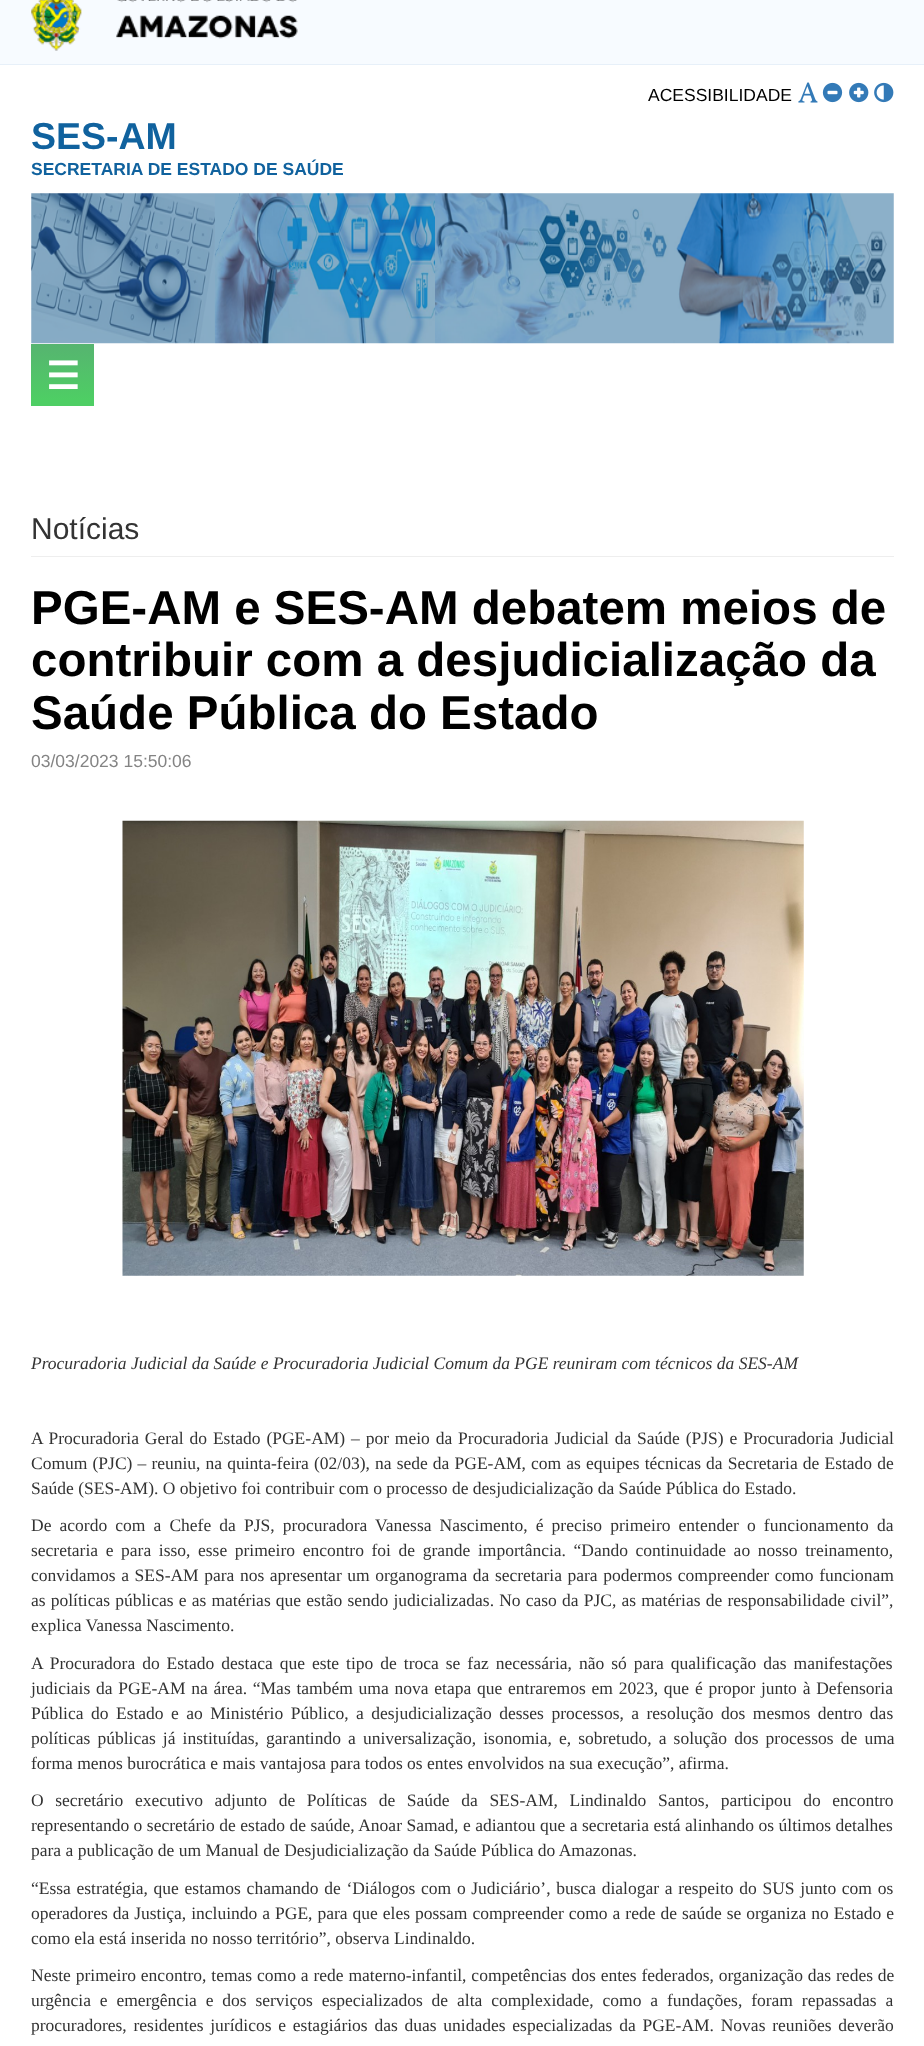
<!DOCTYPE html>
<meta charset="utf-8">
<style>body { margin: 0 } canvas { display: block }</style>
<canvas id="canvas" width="924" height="2046"></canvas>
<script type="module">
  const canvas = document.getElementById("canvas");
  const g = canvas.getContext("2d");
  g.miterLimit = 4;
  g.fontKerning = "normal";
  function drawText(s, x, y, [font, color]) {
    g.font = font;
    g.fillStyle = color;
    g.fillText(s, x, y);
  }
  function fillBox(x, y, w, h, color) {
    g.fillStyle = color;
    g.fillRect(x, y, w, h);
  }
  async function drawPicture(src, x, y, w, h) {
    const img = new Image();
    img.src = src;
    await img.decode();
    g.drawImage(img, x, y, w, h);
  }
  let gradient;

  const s1 = ["17.5px Liberation Sans", "#000000"];
  const s2 = ["bold 37.5px Liberation Sans", "#10629E"];
  const s3 = ["bold 17.5px Liberation Sans", "#10629E"];
  const s4 = ["bold 37.5px DejaVu Sans", "#FFFFFF"];
  const s5 = ["30px Liberation Sans", "#333333"];
  const s6 = ["bold 47.5px Liberation Sans", "#000000"];
  const s7 = ["17.5px Liberation Sans", "#848484"];
  const s8 = ["italic 17.5px Liberation Serif", "#333333"];
  const s9 = ["17.5px Liberation Serif", "#333333"];

  fillBox(0, 0, 924, 2046, "#FFFFFF");
  fillBox(0, 0, 924, 64, "#F7FBFF");
  fillBox(0, 64, 924, 1, "#E7F0F9");
  await drawPicture("pic1.png", 31, 0, 267, 51);
  drawText("ACESSIBILIDADE", 648, 101, s1);
  await drawPicture("pic2.png", 798, 82, 20, 21);
  await drawPicture("pic3.png", 822, 82, 21, 21);
  await drawPicture("pic4.png", 849, 82, 20, 21);
  await drawPicture("pic5.png", 874, 82, 20, 21);
  drawText("SES-AM", 31, 149, s2);
  drawText("SECRETARIA DE ESTADO DE SAÚDE", 31, 175, s3);
  await drawPicture("pic6.png", 31, 193, 863, 151);
  gradient = g.createLinearGradient(63, 344, 63, 406);
  gradient.addColorStop(0, "#56B470");
  gradient.addColorStop(0.9, "#4ECE64");
  gradient.addColorStop(0.98, "#4ECE64");
  g.fillStyle = gradient;
  g.fillRect(31, 344, 63, 62);
  drawText("☰", 46, 389, s4);
  fillBox(31, 556, 863, 1, "#EEEEEE");
  drawText("Notícias", 31, 539, s5);
  drawText("PGE-AM e SES-AM debatem meios de", 31, 624, s6);
  drawText("contribuir com a desjudicialização da", 31, 676, s6);
  drawText("Saúde Pública do Estado", 31, 729, s6);
  drawText("03/03/2023 15:50:06", 31, 767, s7);
  await drawPicture("pic7.png", 122, 820, 682, 456);
  drawText("Procuradoria Judicial da Saúde e Procuradoria Judicial Comum da PGE reuniram com técnicos da SES-AM", 31, 1369, s8);
  g.wordSpacing = "1.5px";
  drawText("A Procuradoria Geral do Estado (PGE-AM) – por meio da Procuradoria Judicial da Saúde (PJS) e Procuradoria Judicial", 31, 1444, s9);
  g.wordSpacing = "0.75px";
  drawText("Comum (PJC) – reuniu, na quinta-feira (02/03), na sede da PGE-AM, com as equipes técnicas da Secretaria de Estado de", 31, 1469, s9);
  g.wordSpacing = "0px";
  drawText("Saúde (SES-AM). O objetivo foi contribuir com o processo de desjudicialização da Saúde Pública do Estado.", 31, 1494, s9);
  g.wordSpacing = "3.75px";
  drawText("De acordo com a Chefe da PJS, procuradora Vanessa Nascimento, é preciso primeiro entender o funcionamento da", 31, 1531, s9);
  g.wordSpacing = "3.25px";
  drawText("secretaria e para isso, esse primeiro encontro foi de grande importância. “Dando continuidade ao nosso treinamento,", 31, 1556, s9);
  g.wordSpacing = "1.2px";
  drawText("convidamos a SES-AM para nos apresentar um organograma da secretaria para podermos compreender como funcionam", 31, 1581, s9);
  g.wordSpacing = "0.8px";
  drawText("as políticas públicas e as matérias que estão sendo judicializadas. No caso da PJC, as matérias de responsabilidade civil”,", 31, 1606, s9);
  g.wordSpacing = "0px";
  drawText("explica Vanessa Nascimento.", 31, 1631, s9);
  g.wordSpacing = "2.6px";
  drawText("A Procuradora do Estado destaca que este tipo de troca se faz necessária, não só para qualificação das manifestações", 31, 1669, s9);
  g.wordSpacing = "1.4px";
  drawText("judiciais da PGE-AM na área. “Mas também uma nova etapa que entraremos em 2023, que é propor junto à Defensoria", 31, 1694, s9);
  g.wordSpacing = "3.1px";
  drawText("Pública do Estado e ao Ministério Público, a desjudicialização desses processos, a resolução dos mesmos dentro das", 31, 1719, s9);
  g.wordSpacing = "2.75px";
  drawText("políticas públicas já instituídas, garantindo a universalização, isonomia, e, sobretudo, a solução dos processos de uma", 31, 1744, s9);
  g.wordSpacing = "0px";
  drawText("forma menos burocrática e mais vantajosa para todos os entes envolvidos na sua execução”, afirma.", 31, 1769, s9);
  g.wordSpacing = "7.25px";
  drawText("O secretário executivo adjunto de Políticas de Saúde da SES-AM, Lindinaldo Santos, participou do encontro", 31, 1806, s9);
  g.wordSpacing = "0.1px";
  drawText("representando o secretário de estado de saúde, Anoar Samad, e adiantou que a secretaria está alinhando os últimos detalhes", 31, 1831, s9);
  g.wordSpacing = "0px";
  drawText("para a publicação de um Manual de Desjudicialização da Saúde Pública do Amazonas.", 31, 1856, s9);
  g.wordSpacing = "1.3px";
  drawText("“Essa estratégia, que estamos chamando de ‘Diálogos com o Judiciário’, busca dialogar a respeito do SUS junto com os", 31, 1894, s9);
  g.wordSpacing = "0.6px";
  drawText("operadores da Justiça, incluindo a PGE, para que eles possam compreender como a rede de saúde se organiza no Estado e", 31, 1919, s9);
  g.wordSpacing = "0px";
  drawText("como ela está inserida no nosso território”, observa Lindinaldo.", 31, 1944, s9);
  g.wordSpacing = "0.5px";
  drawText("Neste primeiro encontro, temas como a rede materno-infantil, competências dos entes federados, organização das redes de", 31, 1981, s9);
  g.wordSpacing = "4.5px";
  drawText("urgência e emergência e dos serviços especializados de alta complexidade, como a fundações, foram repassadas a", 31, 2006, s9);
  g.wordSpacing = "2.4px";
  drawText("procuradores, residentes jurídicos e estagiários das duas unidades especializadas da PGE-AM. Novas reuniões deverão", 31, 2031, s9);
</script>
